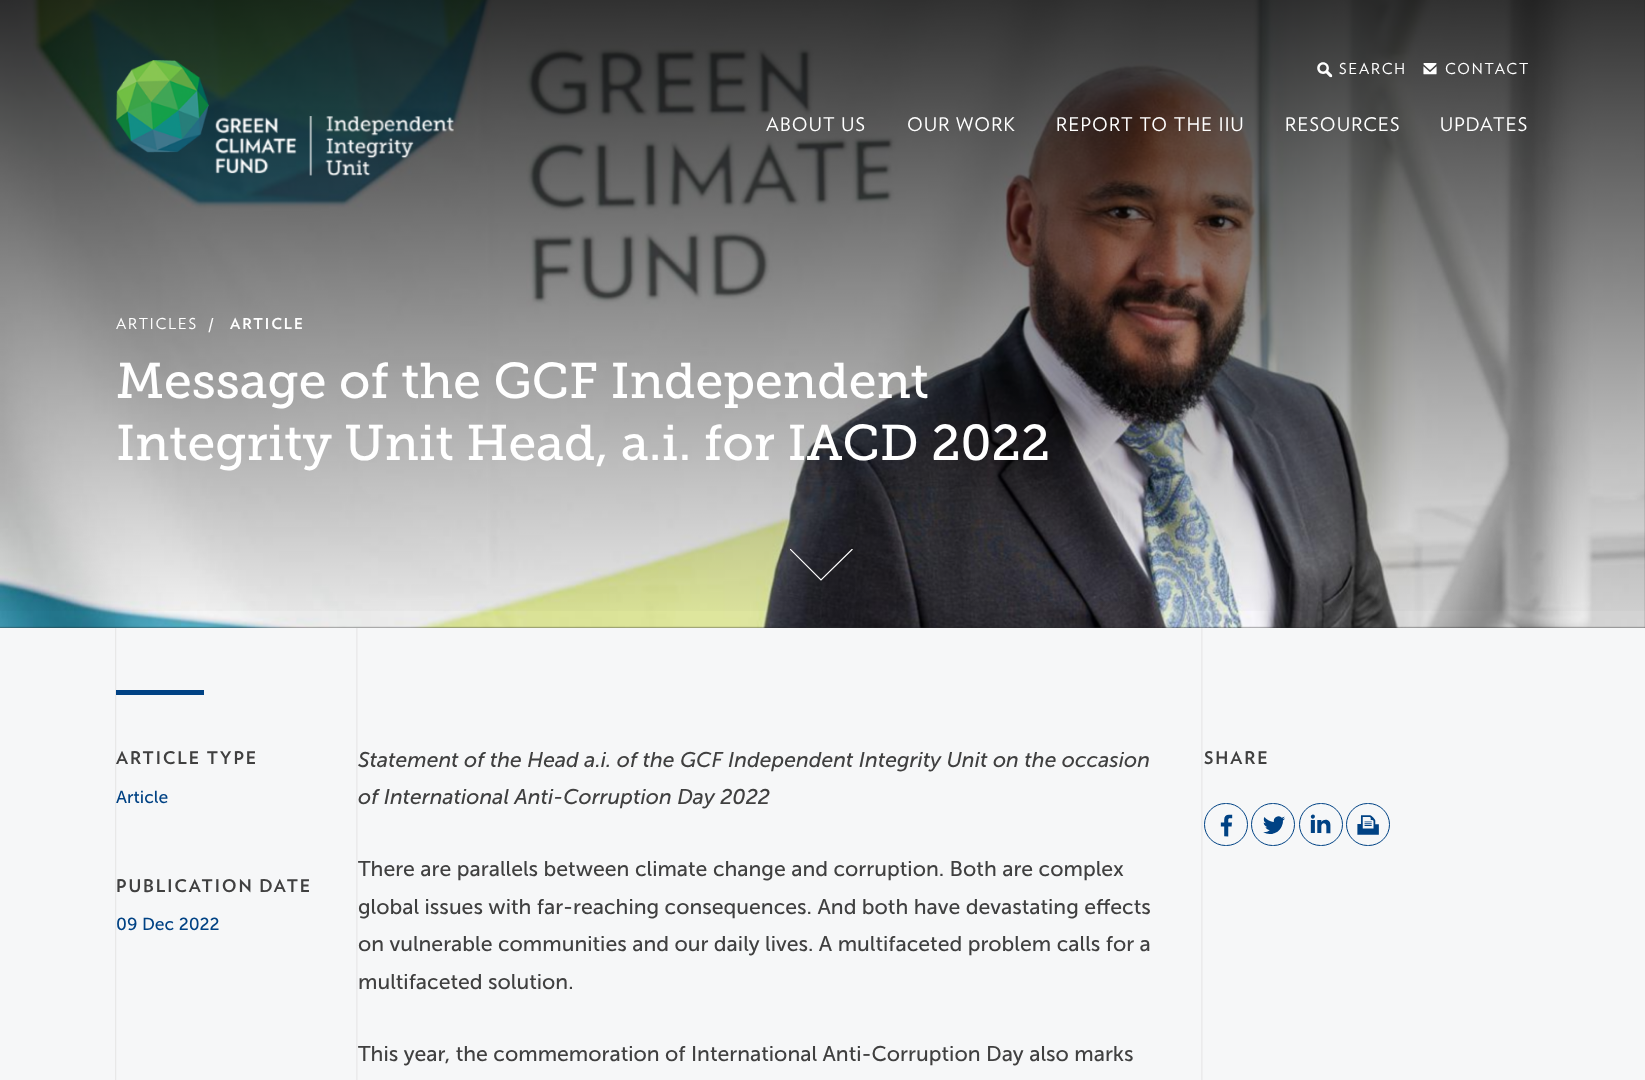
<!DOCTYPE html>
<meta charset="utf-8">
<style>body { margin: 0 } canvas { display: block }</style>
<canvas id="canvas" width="1645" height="1080"></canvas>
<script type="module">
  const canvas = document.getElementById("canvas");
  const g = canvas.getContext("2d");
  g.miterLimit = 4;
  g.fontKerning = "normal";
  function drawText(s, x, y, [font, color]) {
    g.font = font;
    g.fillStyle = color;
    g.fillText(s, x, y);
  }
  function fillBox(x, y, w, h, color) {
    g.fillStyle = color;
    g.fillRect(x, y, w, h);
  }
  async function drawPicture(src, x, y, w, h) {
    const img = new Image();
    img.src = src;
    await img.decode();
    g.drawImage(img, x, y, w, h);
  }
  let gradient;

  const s1 = ["15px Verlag", "#FFFFFF"];
  const s2 = ["18.75px Verlag", "#FFFFFF"];
  const s3 = ["bold 15px Verlag", "#FFFFFF"];
  const s4 = ["50px 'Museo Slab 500'", "#FFFFFF"];
  const s5 = ["bold 17.5px Verlag", "#404040"];
  const s6 = ["17.5px 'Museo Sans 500'", "#004284"];
  const s7 = ["italic 21.25px 'Museo Sans 500'", "#404040"];
  const s8 = ["21.25px 'Museo Sans 500'", "#404040"];

  fillBox(0, 0, 1645, 1080, "#F6F7F8");
  fillBox(0, 0, 1645, 628, "#252525");
  await drawPicture("pic6.png", 0, 0, 1645, 628);
  gradient = g.createLinearGradient(823, 0, 823, 628);
  gradient.addColorStop(0, "rgba(0, 0, 0, 0.8)");
  gradient.addColorStop(1, "rgba(0, 0, 0, 0)");
  g.fillStyle = gradient;
  g.fillRect(0, 0, 1645, 611);
  await drawPicture("pic1.png", 116, 60, 93, 93);
  await drawPicture("pic2.png", 215, 117, 82, 57);
  await drawPicture("pic3.png", 309, 116, 145, 60);
  await drawPicture("pic4.png", 1317, 62, 16, 16);
  g.letterSpacing = "1.9px";
  drawText("SEARCH", 1339, 74, s1);
  await drawPicture("pic5.png", 1423, 63, 14, 12);
  drawText("CONTACT", 1445, 74, s1);
  g.letterSpacing = "1.25px";
  drawText("ABOUT US", 766, 131, s2);
  drawText("OUR WORK", 907, 131, s2);
  drawText("REPORT TO THE IIU", 1056, 131, s2);
  drawText("RESOURCES", 1285, 131, s2);
  drawText("UPDATES", 1440, 131, s2);
  g.letterSpacing = "1.9px";
  drawText("ARTICLES", 116, 329, s1);
  drawText("/", 208, 329, s3);
  drawText("ARTICLE", 230, 329, s3);
  g.letterSpacing = "0px";
  drawText("Message of the GCF Independent", 116, 398, s4);
  drawText("Integrity Unit Head, a.i. for IACD 2022", 116, 460, s4);
  g.save();
  g.beginPath();
  g.rect(790, 549, 65, 35);
  g.clip();
  g.beginPath();
  g.moveTo(790, 549);
  g.lineTo(821, 580);
  g.lineTo(852.5, 549);
  g.strokeStyle = "#FFFFFF";
  g.lineWidth = 1.2;
  g.stroke();
  g.restore();
  await drawPicture("pic11.png", 115, 628, 1088, 452);
  fillBox(116, 690, 88, 5, "#004284");
  g.letterSpacing = "1.9px";
  drawText("ARTICLE TYPE", 116, 764, s5);
  g.letterSpacing = "0px";
  drawText("Article", 116, 803, s6);
  g.letterSpacing = "1.9px";
  drawText("PUBLICATION DATE", 116, 892, s5);
  g.letterSpacing = "0px";
  drawText("09 Dec 2022", 116, 930, s6);
  drawText("Statement of the Head a.i. of the GCF Independent Integrity Unit on the occasion", 358, 767, s7);
  drawText("of International Anti-Corruption Day 2022", 358, 804, s7);
  drawText("There are parallels between climate change and corruption. Both are complex", 358, 876, s8);
  drawText("global issues with far-reaching consequences. And both have devastating effects", 358, 914, s8);
  drawText("on vulnerable communities and our daily lives. A multifaceted problem calls for a", 358, 951, s8);
  drawText("multifaceted solution.", 358, 989, s8);
  drawText("This year, the commemoration of International Anti-Corruption Day also marks", 358, 1061, s8);
  g.letterSpacing = "1.9px";
  drawText("SHARE", 1204, 764, s5);
  g.beginPath();
  g.roundRect(1204.5, 803.5, 43, 42, 21);
  g.strokeStyle = "#004284";
  g.stroke();
  await drawPicture("pic7.png", 1220, 814, 13, 23);
  g.beginPath();
  g.roundRect(1251.5, 803.5, 43, 42, 21);
  g.stroke();
  await drawPicture("pic8.png", 1263, 816, 22, 18);
  g.beginPath();
  g.roundRect(1299.5, 803.5, 43, 42, 21);
  g.stroke();
  await drawPicture("pic9.png", 1310, 814, 21, 20);
  g.beginPath();
  g.roundRect(1346.5, 803.5, 43, 42, 21);
  g.stroke();
  await drawPicture("pic10.png", 1357, 815, 22, 20);
</script>
